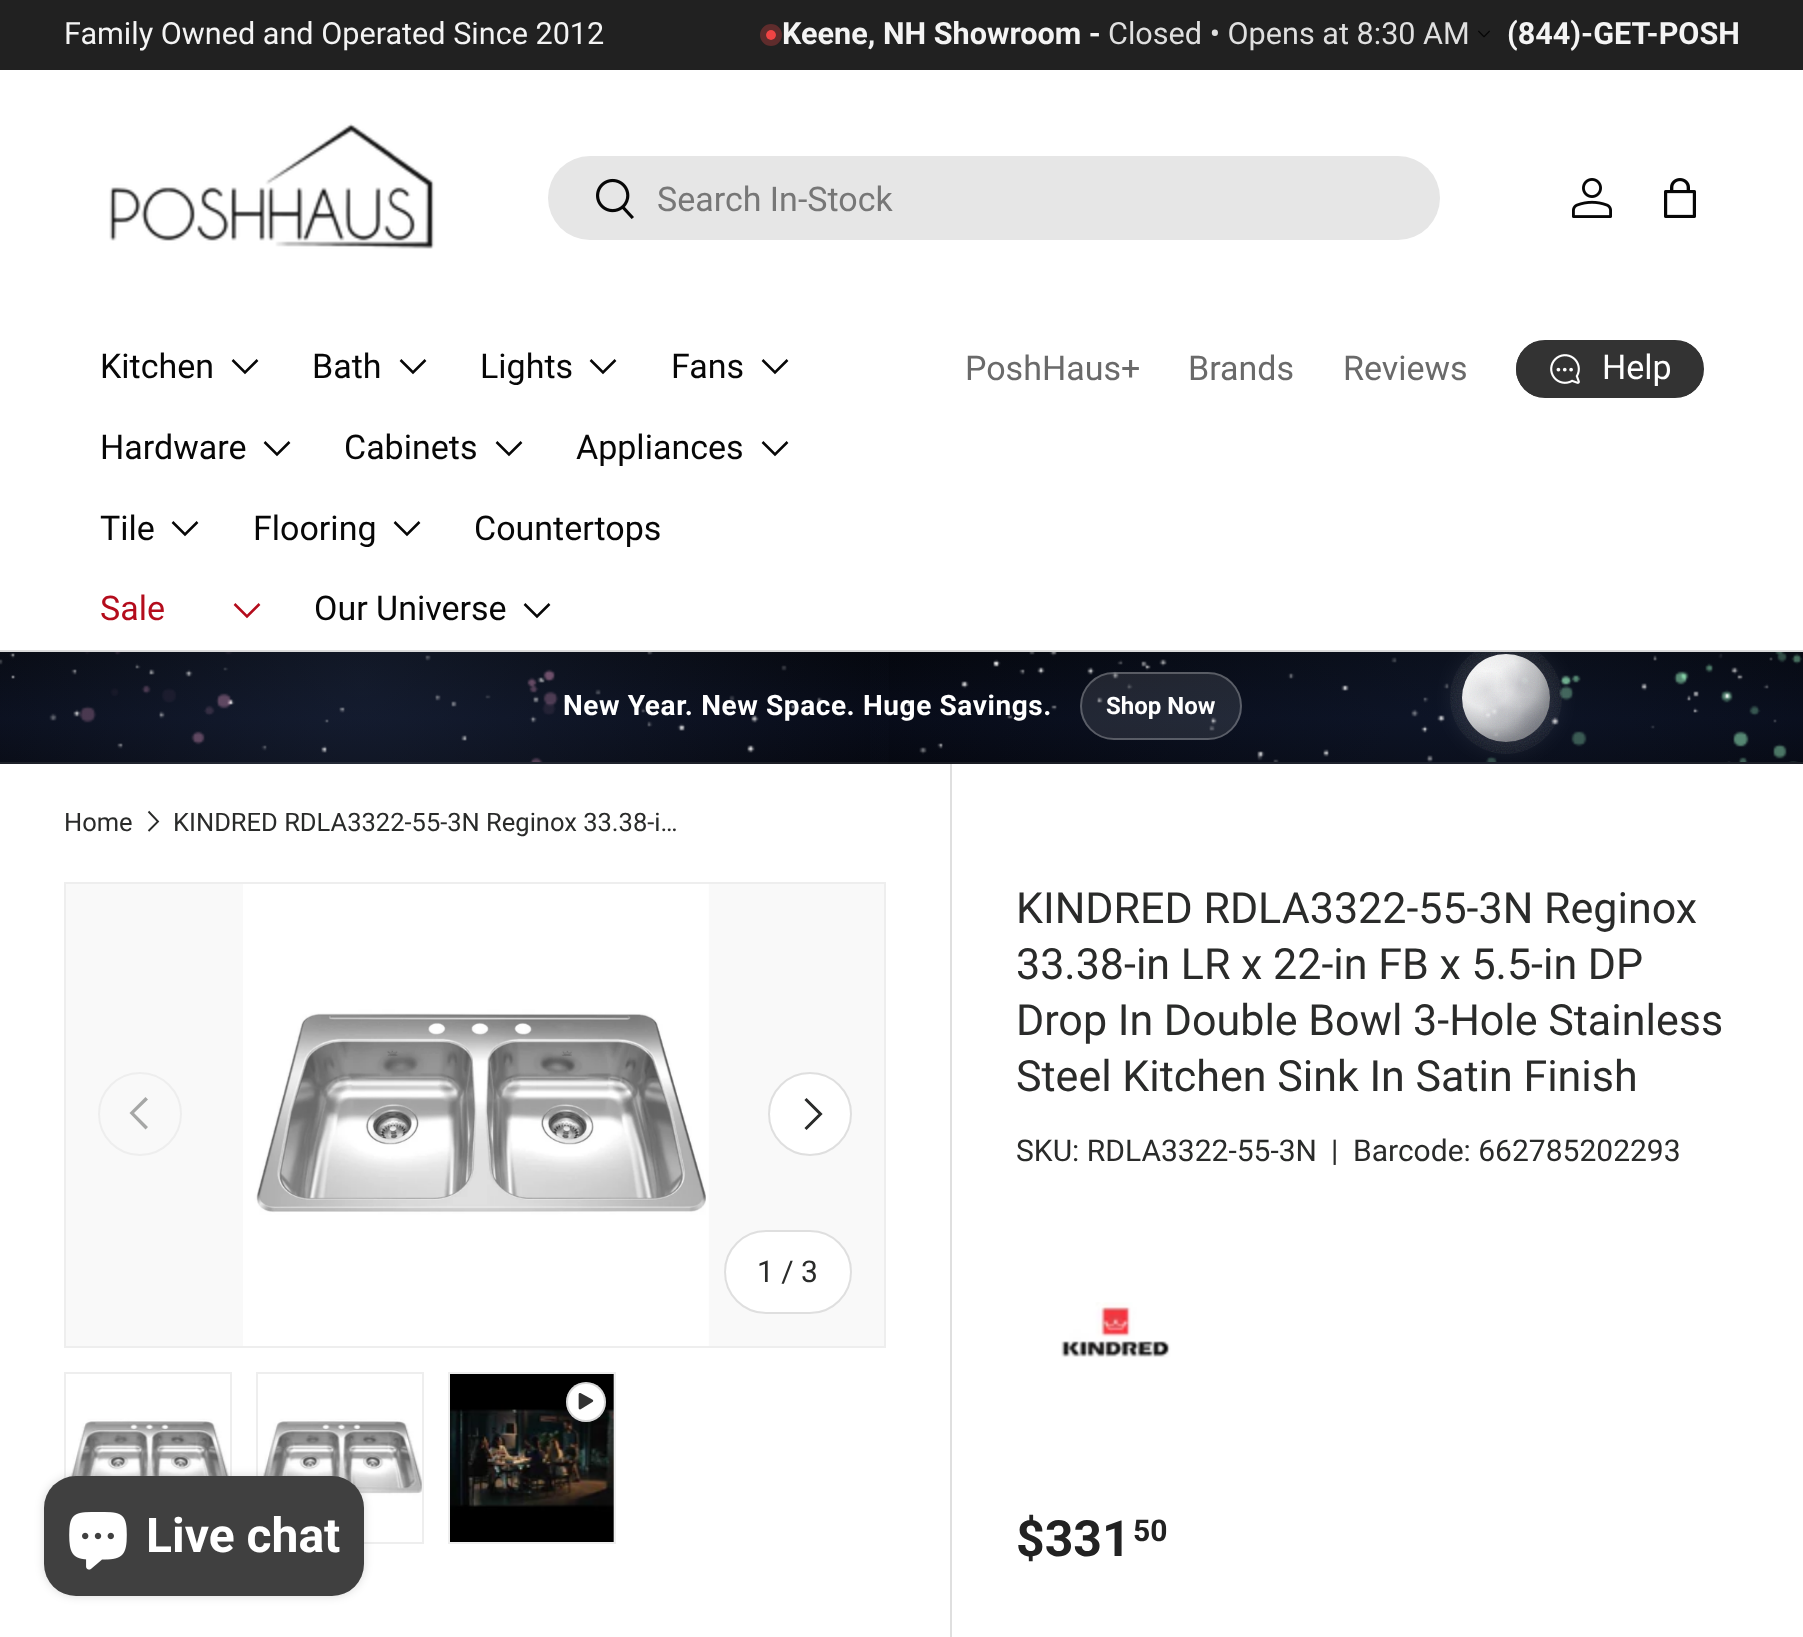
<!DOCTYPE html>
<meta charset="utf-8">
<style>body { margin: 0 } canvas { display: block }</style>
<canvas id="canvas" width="1803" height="1637"></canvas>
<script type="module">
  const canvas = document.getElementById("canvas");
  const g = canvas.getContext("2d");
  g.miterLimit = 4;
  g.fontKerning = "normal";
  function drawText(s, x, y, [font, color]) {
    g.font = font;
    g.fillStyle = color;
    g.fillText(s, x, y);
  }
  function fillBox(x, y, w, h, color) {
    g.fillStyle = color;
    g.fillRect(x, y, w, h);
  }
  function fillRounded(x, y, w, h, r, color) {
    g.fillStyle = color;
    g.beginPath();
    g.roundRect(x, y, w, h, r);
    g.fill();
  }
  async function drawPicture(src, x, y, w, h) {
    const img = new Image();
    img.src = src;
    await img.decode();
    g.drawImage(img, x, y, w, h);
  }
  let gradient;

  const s1 = ["30.6px Roboto", "#F4F4F4"];
  const s2 = ["bold 30.6px Roboto", "#F4F4F4"];
  const s3 = ["30.6px Roboto", "#DFDFDF"];
  const s4 = ["34px Roboto", "#777777"];
  const s5 = ["34px Roboto", "#070707"];
  const s6 = ["34px Roboto", "#B40C1C"];
  const s7 = ["34px Roboto", "#6A6A6A"];
  const s8 = ["34px Roboto", "#FFFFFF"];
  const s9 = ["bold 28px Roboto", "#FFFFFF"];
  const s10 = ["bold 24px Roboto", "#FFFFFF"];
  const s11 = ["25.5px Roboto", "#2A2B2A"];
  const s12 = ["30px Roboto", "#2A2B2A"];
  const s13 = ["43px Roboto", "#2A2B2A"];
  const s14 = ["bold 50px Roboto", "#222222"];
  const s15 = ["bold 30px Roboto", "#222222"];
  const s16 = ["bold 48px Roboto", "#FFFFFF"];

  fillBox(0, 0, 1803, 1637, "#FFFFFF");
  fillBox(0, 0, 1803, 70, "#212121");
  drawText("Family Owned and Operated Since 2012", 64, 44, s1);
  g.beginPath();
  g.arc(771, 35, 8, 0, Math.PI * 2);
  g.strokeStyle = "#5F2C2C";
  g.lineWidth = 6;
  g.stroke();
  g.fillStyle = "#EF4444";
  g.beginPath();
  g.arc(771, 35, 5, 0, Math.PI * 2);
  g.fill();
  drawText("Keene, NH Showroom -", 782, 44, s2);
  drawText("Closed • Opens at 8:30 AM", 1108, 44, s3);
  await drawPicture("pic1.png", 1478, 30, 12, 8);
  drawText("(844)-GET-POSH", 1507, 44, s2);
  gradient = g.createLinearGradient(902, 652, 902, 762);
  gradient.addColorStop(0, "#04060C");
  gradient.addColorStop(0.6, "#070B18");
  gradient.addColorStop(1, "#05070F");
  g.fillStyle = gradient;
  g.fillRect(0, 652, 1803, 110);
  gradient = g.createRadialGradient(1443, 674, 0, 1443, 674, 1446);
  gradient.addColorStop(0, "rgba(40, 60, 100, 0.2)");
  gradient.addColorStop(0.45, "rgba(40, 60, 100, 0)");
  g.fillStyle = gradient;
  g.fillRect(870, 652, 933, 110);
  gradient = g.createRadialGradient(1443, 784, 0, 1443, 784, 1446);
  gradient.addColorStop(0, "#1F2430");
  gradient.addColorStop(0.45, "#181A1F");
  g.fillStyle = gradient;
  g.fillRect(0, 762, 1803, 2);
  gradient = g.createRadialGradient(361, 685, 0, 361, 685, 1445);
  gradient.addColorStop(0, "rgba(60, 80, 120, 0.25)");
  gradient.addColorStop(0.4, "rgba(60, 80, 120, 0)");
  g.fillStyle = gradient;
  g.fillRect(0, 652, 889, 110);
  await drawPicture("pic8.png", 0, 652, 1803, 110);
  g.save();
  g.beginPath();
  g.rect(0, 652, 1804, 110);
  g.clip();
  g.beginPath();
  g.moveTo(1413, 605);
  g.lineTo(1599, 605);
  g.lineTo(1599, 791);
  g.lineTo(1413, 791);
  g.closePath();
  g.moveTo(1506, 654);
  g.bezierCurveTo(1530.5, 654, 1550, 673.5, 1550, 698);
  g.bezierCurveTo(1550, 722.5, 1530.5, 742, 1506, 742);
  g.bezierCurveTo(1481.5, 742, 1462, 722.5, 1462, 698);
  g.bezierCurveTo(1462, 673.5, 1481.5, 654, 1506, 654);
  g.closePath();
  g.clip("evenodd");
  g.fillStyle = "rgba(255, 255, 255, 0.16)";
  g.filter = "blur(16px)";
  g.beginPath();
  g.roundRect(1462, 654, 88, 88, 44);
  g.fill();
  g.filter = "none";
  g.restore();
  fillBox(0, 650, 1803, 2, "#DADADA");
  await drawPicture("pic2.png", 109, 123, 326, 126);
  fillRounded(548, 156, 892, 84, 42, "#E6E6E6");
  await drawPicture("pic3.png", 596, 178, 38, 41);
  drawText("Search In-Stock", 657, 211, s4);
  await drawPicture("pic4.png", 1572, 178, 40, 40);
  await drawPicture("pic5.png", 1664, 178, 32, 40);
  drawText("Kitchen", 100, 378, s5);
  g.beginPath();
  g.moveTo(257.5, 360);
  g.lineTo(245, 372.5);
  g.lineTo(232.5, 360);
  g.strokeStyle = "#070707";
  g.lineWidth = 2.5;
  g.stroke();
  drawText("Bath", 312, 378, s5);
  g.beginPath();
  g.moveTo(425.5, 360);
  g.lineTo(413, 372.5);
  g.lineTo(400.5, 360);
  g.stroke();
  drawText("Lights", 480, 378, s5);
  g.beginPath();
  g.moveTo(615.5, 360);
  g.lineTo(603, 372.5);
  g.lineTo(590.5, 360);
  g.stroke();
  drawText("Fans", 671, 378, s5);
  g.beginPath();
  g.moveTo(787.5, 360);
  g.lineTo(775, 372.5);
  g.lineTo(762.5, 360);
  g.stroke();
  drawText("Hardware", 100, 459, s5);
  g.beginPath();
  g.moveTo(289.5, 442);
  g.lineTo(277, 454.5);
  g.lineTo(264.5, 442);
  g.stroke();
  drawText("Cabinets", 344, 459, s5);
  g.beginPath();
  g.moveTo(521.5, 442);
  g.lineTo(509, 454.5);
  g.lineTo(496.5, 442);
  g.stroke();
  drawText("Appliances", 576, 459, s5);
  g.beginPath();
  g.moveTo(787.5, 442);
  g.lineTo(775, 454.5);
  g.lineTo(762.5, 442);
  g.stroke();
  drawText("Tile", 100, 540, s5);
  g.beginPath();
  g.moveTo(197.5, 522);
  g.lineTo(185, 534.5);
  g.lineTo(172.5, 522);
  g.stroke();
  drawText("Flooring", 253, 540, s5);
  g.beginPath();
  g.moveTo(419.5, 522);
  g.lineTo(407, 534.5);
  g.lineTo(394.5, 522);
  g.stroke();
  drawText("Countertops", 474, 540, s5);
  drawText("Sale", 100, 620, s6);
  g.beginPath();
  g.moveTo(259.5, 604);
  g.lineTo(247, 616.5);
  g.lineTo(234.5, 604);
  g.strokeStyle = "#B40C1C";
  g.stroke();
  drawText("Our Universe", 314, 620, s5);
  g.beginPath();
  g.moveTo(549.5, 604);
  g.lineTo(537, 616.5);
  g.lineTo(524.5, 604);
  g.strokeStyle = "#070707";
  g.stroke();
  drawText("PoshHaus+", 965, 380, s7);
  drawText("Brands", 1188, 380, s7);
  drawText("Reviews", 1343, 380, s7);
  g.save();
  g.beginPath();
  g.roundRect(1516, 340, 188, 58, 29);
  g.clip();
  gradient = g.createLinearGradient(1160, 303, 1692, 435);
  gradient.addColorStop(0.6, "#5A5A5A");
  gradient.addColorStop(0.6, "#333333");
  gradient.addColorStop(1, "#333333");
  g.fillStyle = gradient;
  g.fillRect(1516, 342, 186, 54);
  g.restore();
  g.beginPath();
  g.roundRect(1517, 341, 186, 56, 28);
  g.strokeStyle = "#333333";
  g.lineWidth = 2;
  g.stroke();
  await drawPicture("pic6.png", 1550, 354, 30, 30);
  drawText("Help", 1602, 379, s8);
  gradient = g.createRadialGradient(361, 795, 0, 361, 795, 1445);
  gradient.addColorStop(0, "rgba(76, 94, 131, 0.25)");
  gradient.addColorStop(0.4, "rgba(76, 94, 131, 0)");
  g.fillStyle = gradient;
  g.fillRect(0, 762, 888, 2);
  gradient = g.createRadialGradient(1485, 675, 0, 1485, 675, 93);
  gradient.addColorStop(0, "rgba(255, 255, 255, 0.98)");
  gradient.addColorStop(0.34, "rgba(255, 255, 255, 0.92)");
  gradient.addColorStop(0.56, "rgba(237, 237, 237, 0.78)");
  gradient.addColorStop(0.74, "rgba(203, 203, 203, 0.62)");
  gradient.addColorStop(1, "rgba(164, 164, 164, 0.5)");
  g.fillStyle = gradient;
  g.beginPath();
  g.arc(1506, 698, 44, 0, Math.PI * 2);
  g.fill();
  gradient = g.createRadialGradient(1487, 690, 0, 1487, 690, 87);
  gradient.addColorStop(0, "rgba(74, 74, 90, 0.14)");
  gradient.addColorStop(0.24, "rgba(74, 74, 90, 0)");
  g.fillStyle = gradient;
  g.fillRect(1469, 672, 36, 36);
  gradient = g.createRadialGradient(1527, 717, 0, 1527, 717, 96);
  gradient.addColorStop(0, "rgba(86, 86, 102, 0.16)");
  gradient.addColorStop(0.23, "rgba(86, 86, 102, 0)");
  g.fillStyle = gradient;
  g.fillRect(1508, 698, 34, 34);
  gradient = g.createRadialGradient(1501, 710, 0, 1501, 710, 80);
  gradient.addColorStop(0, "rgba(91, 91, 107, 0.18)");
  gradient.addColorStop(0.25, "rgba(91, 91, 107, 0)");
  g.fillStyle = gradient;
  g.fillRect(1483, 692, 35, 35);
  gradient = g.createRadialGradient(1519, 684, 0, 1519, 684, 88);
  gradient.addColorStop(0, "rgba(86, 86, 102, 0.22)");
  gradient.addColorStop(0.26, "rgba(86, 86, 102, 0)");
  g.fillStyle = gradient;
  g.fillRect(1498, 663, 41, 42);
  await drawPicture("pic7.png", 1450, 652, 112, 102);
  g.letterSpacing = "0.6px";
  drawText("New Year. New Space. Huge Savings.", 563, 715, s9);
  fillRounded(1080, 672, 162, 68, 34, "rgba(255, 255, 255, 0.1)");
  g.beginPath();
  g.roundRect(1081, 673, 160, 66, 33);
  g.strokeStyle = "rgba(255, 255, 255, 0.25)";
  g.stroke();
  g.letterSpacing = "0px";
  drawText("Shop Now", 1106, 714, s10);
  drawText("Home", 64, 831, s11);
  g.beginPath();
  g.moveTo(148.5, 811.5);
  g.lineTo(158, 821.5);
  g.lineTo(148.5, 831);
  g.strokeStyle = "#2A2B2A";
  g.lineWidth = 1.9;
  g.stroke();
  drawText("KINDRED RDLA3322-55-3N Reginox 33.38-i…", 173, 831, s11);
  g.strokeStyle = "#EEEEEE";
  g.lineWidth = 2;
  g.strokeRect(65, 883, 820, 464);
  fillBox(66, 884, 818, 462, "#F9F9F9");
  await drawPicture("pic9.png", 243, 884, 466, 462);
  g.beginPath();
  g.arc(140, 1114, 41, 0, Math.PI * 2);
  g.stroke();
  g.fillStyle = "#A6A7A6";
  g.beginPath();
  g.moveTo(129.5, 1113);
  g.lineTo(145.5, 1097);
  g.lineTo(148, 1099.5);
  g.lineTo(134, 1113);
  g.lineTo(148, 1127);
  g.lineTo(145.5, 1129.5);
  g.closePath();
  g.fill();
  g.fillStyle = "#FFFFFF";
  g.beginPath();
  g.arc(810, 1114, 42, 0, Math.PI * 2);
  g.fill();
  g.beginPath();
  g.arc(810, 1114, 41, 0, Math.PI * 2);
  g.strokeStyle = "rgba(42, 43, 42, 0.15)";
  g.stroke();
  g.beginPath();
  g.moveTo(805.5, 1099);
  g.lineTo(820.5, 1114);
  g.lineTo(805.5, 1129);
  g.strokeStyle = "#2A2B2A";
  g.lineWidth = 3;
  g.stroke();
  fillRounded(724, 1230, 128, 84, 42, "#FFFFFF");
  g.beginPath();
  g.roundRect(725, 1231, 126, 82, 41);
  g.strokeStyle = "rgba(42, 43, 42, 0.15)";
  g.lineWidth = 2;
  g.stroke();
  drawText("1 / 3", 757, 1282, s12);
  g.strokeStyle = "#EEEEEE";
  g.strokeRect(65, 1373, 166, 170);
  await drawPicture("pic10.png", 66, 1374, 164, 104);
  g.strokeRect(257, 1373, 166, 170);
  await drawPicture("pic11.png", 258, 1374, 164, 168);
  fillBox(613, 1374, 1, 168, "#F9F9F9");
  g.strokeRect(449, 1373, 166, 170);
  await drawPicture("pic12.png", 450, 1374, 164, 168);
  g.fillStyle = "#FFFFFF";
  g.beginPath();
  g.arc(586, 1402, 20, 0, Math.PI * 2);
  g.fill();
  g.beginPath();
  g.arc(586, 1402, 19, 0, Math.PI * 2);
  g.strokeStyle = "rgba(51, 51, 51, 0.2)";
  g.stroke();
  await drawPicture("pic13.png", 578, 1393, 16, 17);
  fillBox(950, 764, 2, 873, "#DFDFDF");
  drawText("KINDRED RDLA3322-55-3N Reginox", 1016, 923, s13);
  drawText("33.38-in LR x 22-in FB x 5.5-in DP", 1016, 979, s13);
  drawText("Drop In Double Bowl 3-Hole Stainless", 1016, 1035, s13);
  drawText("Steel Kitchen Sink In Satin Finish", 1016, 1091, s13);
  drawText("SKU: RDLA3322-55-3N", 1016, 1161, s12);
  drawText("|", 1331, 1161, s12);
  drawText("Barcode: 662785202293", 1353, 1161, s12);
  await drawPicture("pic14.png", 1061, 1302, 110, 56);
  drawText("$331", 1016, 1556, s14);
  drawText("50", 1133, 1541, s15);
  g.fillStyle = "rgba(0, 0, 0, 0.15)";
  g.filter = "blur(5px)";
  g.beginPath();
  g.roundRect(44, 1476, 320, 120, 32);
  g.fill();
  g.filter = "none";
  fillRounded(44, 1476, 320, 120, 32, "#404040");
  await drawPicture("pic15.png", 69, 1512, 58, 58);
  drawText("Live chat", 146, 1552, s16);
</script>
